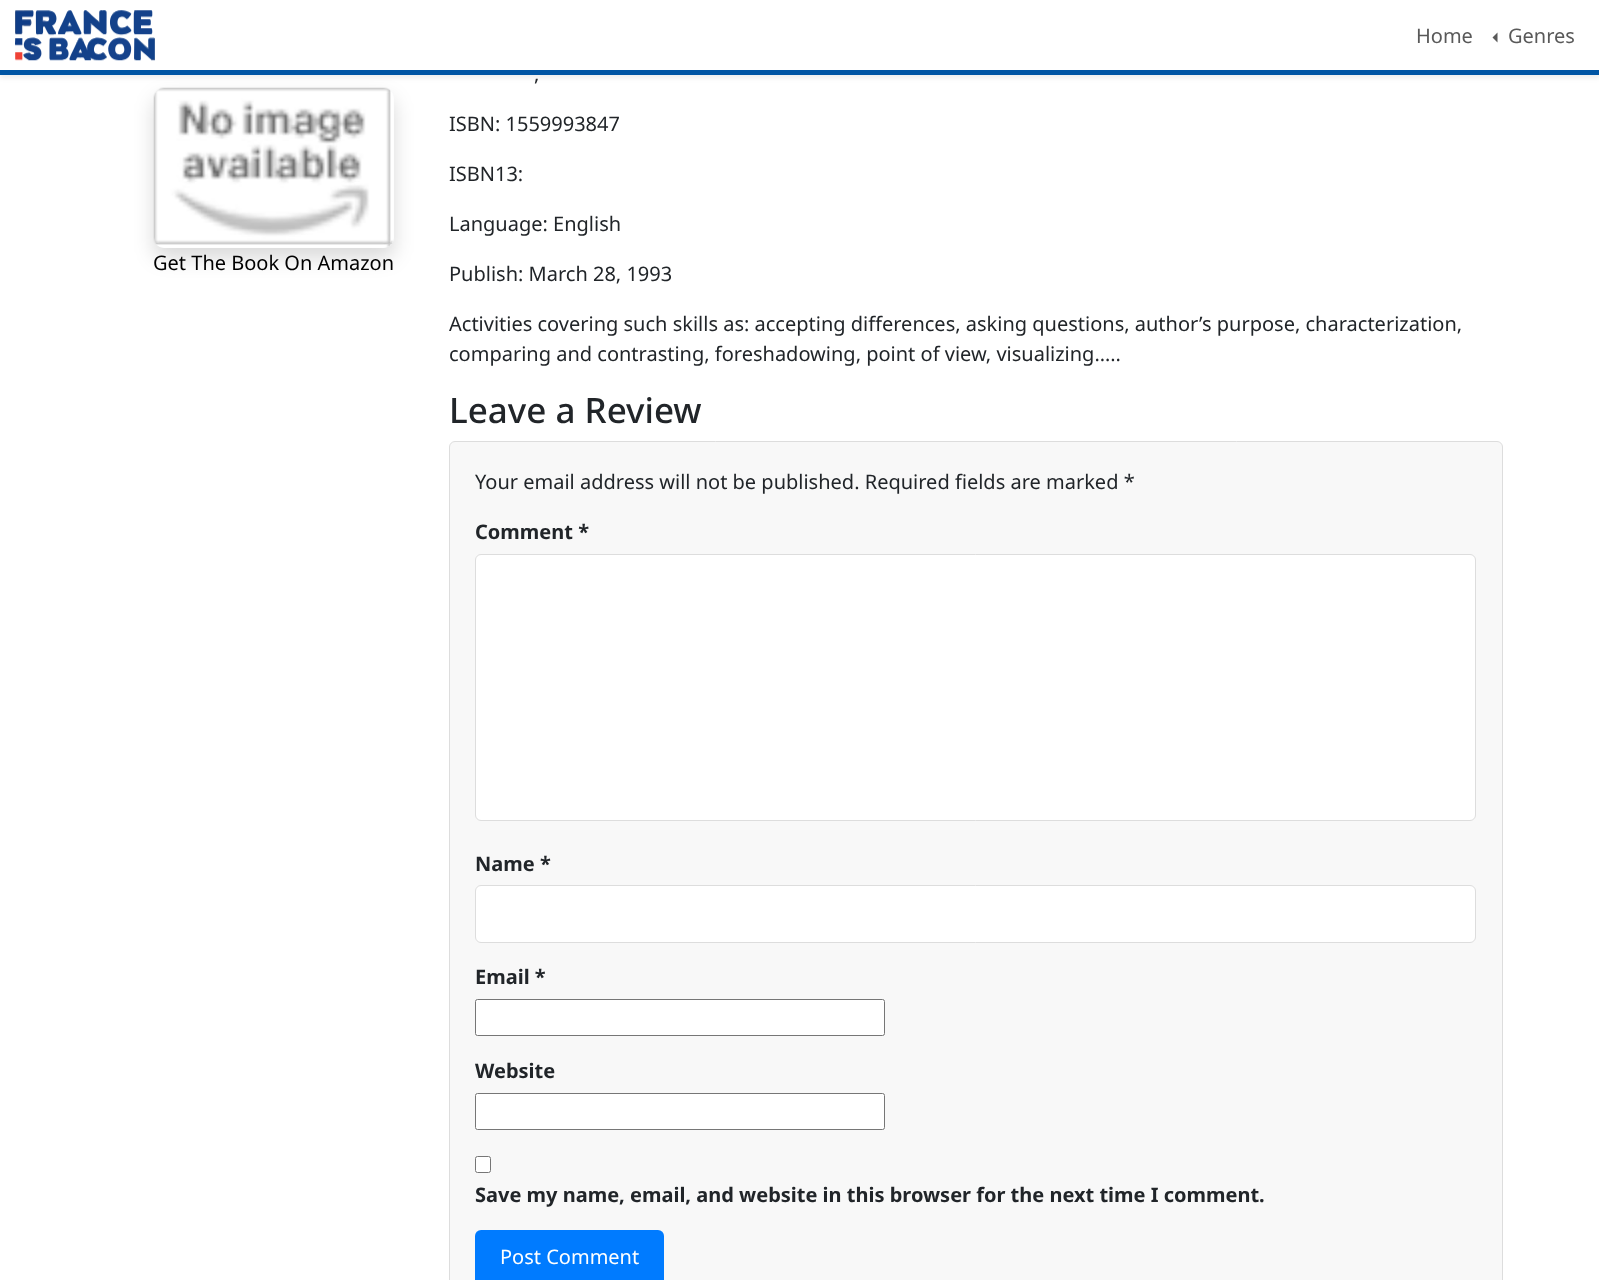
<!DOCTYPE html>
<meta charset="utf-8">
<style>body { margin: 0 } canvas { display: block }</style>
<canvas id="canvas" width="1599" height="1280"></canvas>
<script type="module">
  const canvas = document.getElementById("canvas");
  const g = canvas.getContext("2d");
  g.miterLimit = 4;
  g.fontKerning = "normal";
  function drawText(s, x, y, [font, color]) {
    g.font = font;
    g.fillStyle = color;
    g.fillText(s, x, y);
  }
  function fillBox(x, y, w, h, color) {
    g.fillStyle = color;
    g.fillRect(x, y, w, h);
  }
  function fillRounded(x, y, w, h, r, color) {
    g.fillStyle = color;
    g.beginPath();
    g.roundRect(x, y, w, h, r);
    g.fill();
  }
  async function drawPicture(src, x, y, w, h) {
    const img = new Image();
    img.src = src;
    await img.decode();
    g.drawImage(img, x, y, w, h);
  }

  const s1 = ["20px Noto Sans", "#595959"];
  const s2 = ["20px Noto Sans", "#000000"];
  const s3 = ["20px Noto Sans", "#212529"];
  const s4 = ["500 35px Noto Sans", "#212529"];
  const s5 = ["bold 20px Noto Sans", "#212529"];
  const s6 = ["20px Noto Sans", "#FFFFFF"];

  fillBox(0, 0, 1599, 1280, "#FFFFFF");
  g.fillStyle = "rgba(0, 0, 0, 0.07)";
  g.filter = "blur(2.5px)";
  g.beginPath();
  g.rect(0, 3, 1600, 75);
  g.fill();
  g.filter = "none";
  fillBox(0, 0, 1599, 70, "#FFFFFF");
  fillBox(0, 70, 1599, 5, "#0055A4");
  await drawPicture("pic1.png", 15, 10, 140, 51);
  drawText("Home", 1416, 43, s1);
  g.beginPath();
  g.moveTo(1497.5, 32.5);
  g.lineTo(1497.5, 42.5);
  g.lineTo(1492.5, 37.5);
  g.closePath();
  g.fill();
  drawText("Genres", 1508, 43, s1);
  g.fillStyle = "rgba(0, 0, 0, 0.15)";
  g.filter = "blur(10px)";
  g.beginPath();
  g.roundRect(154, 98, 240, 160, 10);
  g.fill();
  g.filter = "none";
  fillRounded(154, 88, 240, 160, 10, "#F8F9FA");
  await drawPicture("pic2.png", 153, 87, 241, 161);
  drawText("Get The Book On Amazon", 153, 270, s2);
  drawText(",", 534, 81, s3);
  drawText("ISBN: 1559993847", 449, 131, s3);
  drawText("ISBN13:", 449, 181, s3);
  drawText("Language: English", 449, 231, s3);
  drawText("Publish: March 28, 1993", 449, 281, s3);
  drawText("Activities covering such skills as: accepting differences, asking questions, author’s purpose, characterization,", 449, 331, s3);
  drawText("comparing and contrasting, foreshadowing, point of view, visualizing…..", 449, 361, s3);
  drawText("Leave a Review", 449, 423, s4);
  g.fillStyle = "#F8F8F8";
  g.beginPath();
  g.roundRect(449.5, 441.5, 1053, 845, 5.5);
  g.fill();
  g.strokeStyle = "#DDDDDD";
  g.stroke();
  drawText("Your email address will not be published. Required fields are marked *", 475, 489, s3);
  drawText("Comment *", 475, 539, s5);
  g.fillStyle = "#FFFFFF";
  g.beginPath();
  g.roundRect(475.5, 554.5, 1000, 266, 5.5);
  g.fill();
  g.stroke();
  drawText("Name *", 475, 871, s5);
  g.fillStyle = "#FFFFFF";
  g.beginPath();
  g.roundRect(475.5, 885.5, 1000, 57, 5.5);
  g.fill();
  g.stroke();
  drawText("Email *", 475, 984, s5);
  g.fillStyle = "#FFFFFF";
  g.beginPath();
  g.roundRect(475.5, 999.5, 409, 36, 2);
  g.fill();
  g.strokeStyle = "#767676";
  g.stroke();
  drawText("Website", 475, 1078, s5);
  g.fillStyle = "#FFFFFF";
  g.beginPath();
  g.roundRect(475.5, 1093.5, 409, 36, 2);
  g.fill();
  g.stroke();
  g.beginPath();
  g.roundRect(475.5, 1156.5, 15, 16, 2);
  g.fill();
  g.stroke();
  drawText("Save my name, email, and website in this browser for the next time I comment.", 475, 1202, s5);
  fillRounded(475, 1230, 189, 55, 6, "#007BFF");
  drawText("Post Comment", 500, 1264, s6);
</script>
